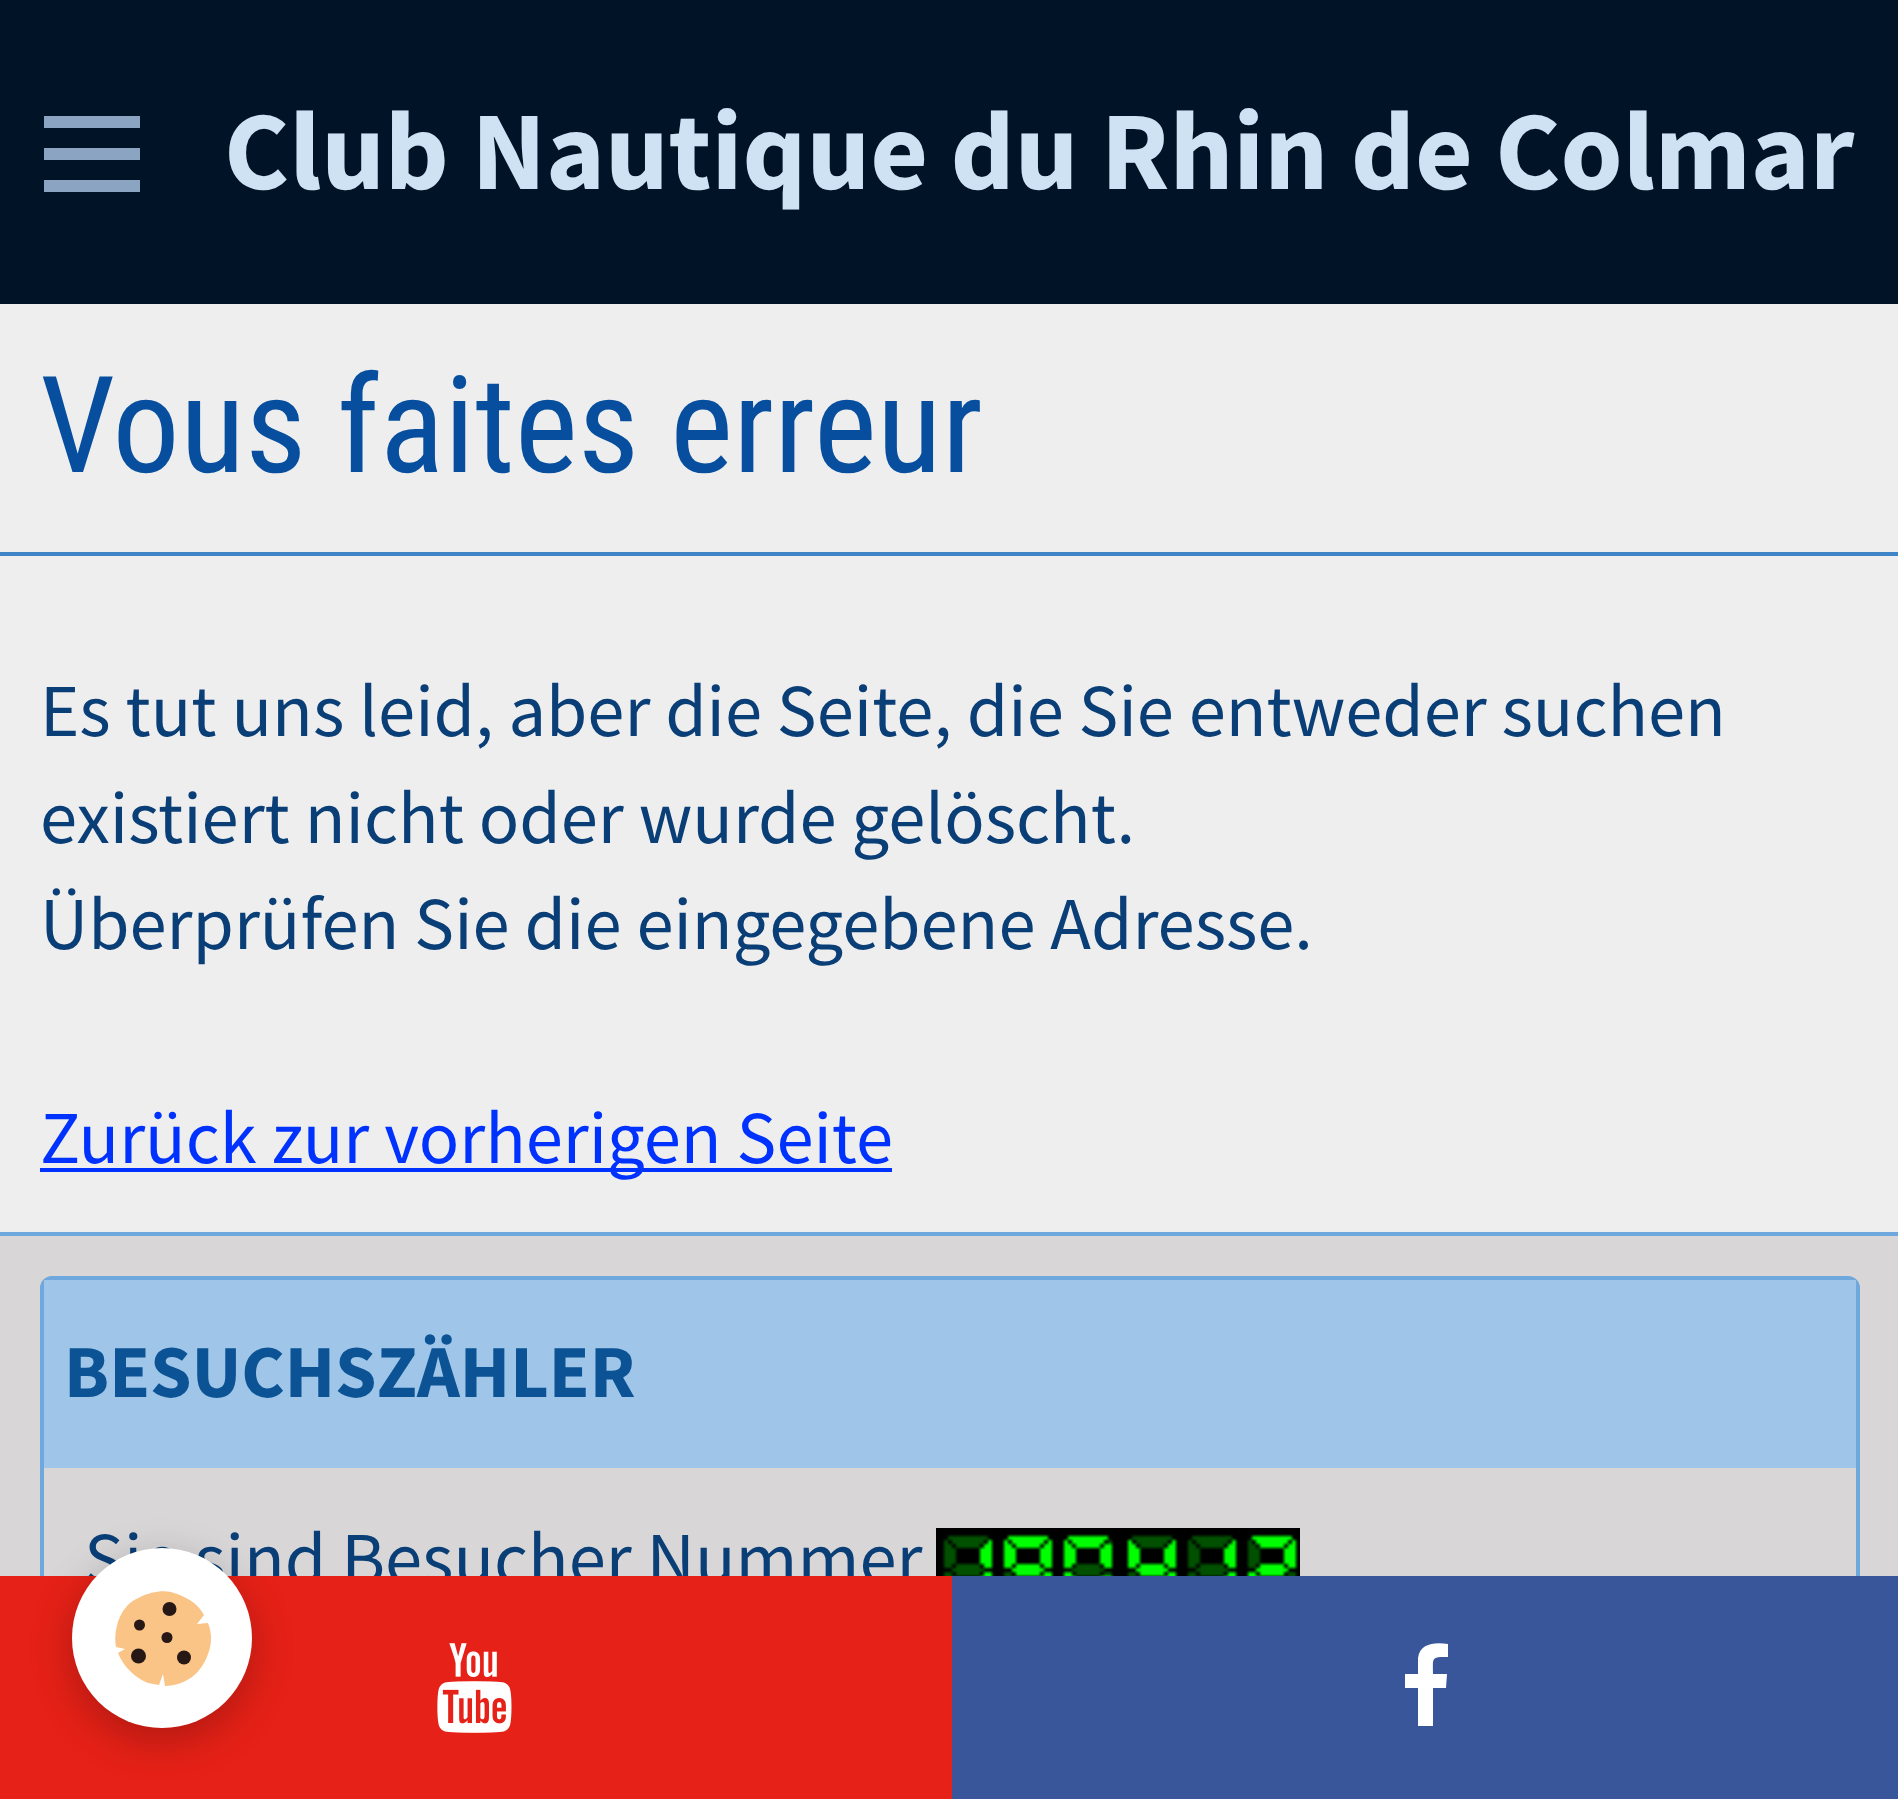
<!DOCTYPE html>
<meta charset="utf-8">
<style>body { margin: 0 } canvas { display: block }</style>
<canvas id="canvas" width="1898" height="1799"></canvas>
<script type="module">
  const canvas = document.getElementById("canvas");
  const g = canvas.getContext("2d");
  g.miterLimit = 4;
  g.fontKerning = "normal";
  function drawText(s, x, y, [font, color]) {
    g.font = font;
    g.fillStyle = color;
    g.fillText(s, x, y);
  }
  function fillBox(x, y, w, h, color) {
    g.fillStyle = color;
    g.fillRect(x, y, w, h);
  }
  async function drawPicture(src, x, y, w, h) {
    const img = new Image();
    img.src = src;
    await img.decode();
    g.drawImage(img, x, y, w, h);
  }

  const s1 = ["bold 112px Source Sans Pro", "#CFE2F3"];
  const s2 = ["134.5px Roboto Condensed", "#074F9E"];
  const s3 = ["74.7px Source Sans Pro", "#0A3E77"];
  const s4 = ["74.7px Source Sans Pro", "#0032FF"];
  const s5 = ["bold 74.7px Source Sans Pro", "#0B5394"];

  fillBox(0, 0, 1898, 1799, "#EEEEEE");
  fillBox(0, 0, 1898, 304, "#011327");
  fillBox(44, 148, 96, 12, "#8AA4C1");
  fillBox(44, 116, 96, 12, "#8AA4C1");
  fillBox(44, 180, 96, 12, "#8AA4C1");
  drawText("Club Nautique du Rhin de Colmar", 224, 189, s1);
  fillBox(0, 552, 1898, 4, "#3D85C6");
  drawText("Vous faites erreur", 40, 472, s2);
  g.wordSpacing = "-0.1px";
  drawText("Es tut uns leid, aber die Seite, die Sie entweder suchen", 40, 736, s3);
  g.wordSpacing = "0px";
  drawText("existiert nicht oder wurde gelöscht.", 40, 843, s3);
  drawText("Überprüfen Sie die eingegebene Adresse.", 40, 949, s3);
  fillBox(40, 1168, 852, 4, "#0032FF");
  drawText("Zurück zur vorherigen Seite", 40, 1163, s4);
  fillBox(0, 1236, 1898, 340, "#D8D6D6");
  fillBox(0, 1232, 1898, 4, "#6FA8DC");
  g.beginPath();
  g.roundRect(42, 1278, 1816, 380, 10);
  g.strokeStyle = "#6FA8DC";
  g.lineWidth = 4;
  g.stroke();
  fillBox(44, 1280, 1812, 188, "#9FC5E8");
  drawText("BESUCHSZÄHLER", 64, 1397, s5);
  drawText("Sie sind Besucher Nummer", 84, 1584, s3);
  await drawPicture("pic1.png", 936, 1528, 60, 48);
  await drawPicture("pic2.png", 996, 1528, 60, 48);
  await drawPicture("pic3.png", 1056, 1528, 64, 48);
  await drawPicture("pic4.png", 1120, 1528, 60, 48);
  await drawPicture("pic1.png", 1180, 1528, 60, 48);
  await drawPicture("pic5.png", 1240, 1528, 60, 48);
  fillBox(0, 1576, 952, 223, "#E62117");
  g.fillStyle = "rgba(0, 0, 0, 0.24)";
  g.filter = "blur(20px)";
  g.beginPath();
  g.roundRect(72, 1560, 180, 180, 90);
  g.fill();
  g.filter = "none";
  g.fillStyle = "#FFFFFF";
  g.beginPath();
  g.arc(162, 1638, 90, 0, Math.PI * 2);
  g.fill();
  g.fillStyle = "#F9C485";
  g.beginPath();
  g.moveTo(159, 1685);
  g.lineTo(163, 1674);
  g.lineTo(165, 1686);
  g.bezierCurveTo(186, 1685, 201, 1674, 208, 1654);
  g.bezierCurveTo(212, 1644, 212, 1633, 208, 1623);
  g.lineTo(197, 1624);
  g.lineTo(204, 1615);
  g.bezierCurveTo(201, 1610, 198, 1606, 194, 1603);
  g.bezierCurveTo(185, 1596, 174, 1593, 171, 1592);
  g.bezierCurveTo(153, 1588, 132, 1600, 127, 1606);
  g.bezierCurveTo(116, 1618, 114, 1636, 116, 1647);
  g.lineTo(125, 1649);
  g.lineTo(118, 1653);
  g.bezierCurveTo(123, 1666, 135, 1678, 148, 1683);
  g.closePath();
  g.fill();
  g.fillStyle = "#281815";
  g.beginPath();
  g.arc(184, 1657.5, 7, 0, Math.PI * 2);
  g.fill();
  g.beginPath();
  g.arc(169.5, 1609, 7, 0, Math.PI * 2);
  g.fill();
  g.beginPath();
  g.arc(138.5, 1656, 7.5, 0, Math.PI * 2);
  g.fill();
  g.beginPath();
  g.arc(167, 1637.5, 5.5, 0, Math.PI * 2);
  g.fill();
  g.beginPath();
  g.arc(139.5, 1625, 5.5, 0, Math.PI * 2);
  g.fill();
  await drawPicture("pic6.png", 437, 1643, 75, 90);
  fillBox(952, 1576, 946, 223, "#385699");
  g.fillStyle = "#FFFFFF";
  g.beginPath();
  g.moveTo(1448, 1644);
  g.lineTo(1448, 1657);
  g.bezierCurveTo(1431, 1657, 1433, 1657, 1433, 1674);
  g.lineTo(1447, 1674);
  g.lineTo(1446, 1688);
  g.lineTo(1433, 1688);
  g.lineTo(1433, 1726);
  g.lineTo(1418, 1726);
  g.lineTo(1418, 1688);
  g.lineTo(1405, 1688);
  g.lineTo(1405, 1674);
  g.lineTo(1418, 1674);
  g.lineTo(1418, 1658);
  g.bezierCurveTo(1420, 1643, 1435, 1642, 1448, 1644);
  g.closePath();
  g.fill();
</script>
